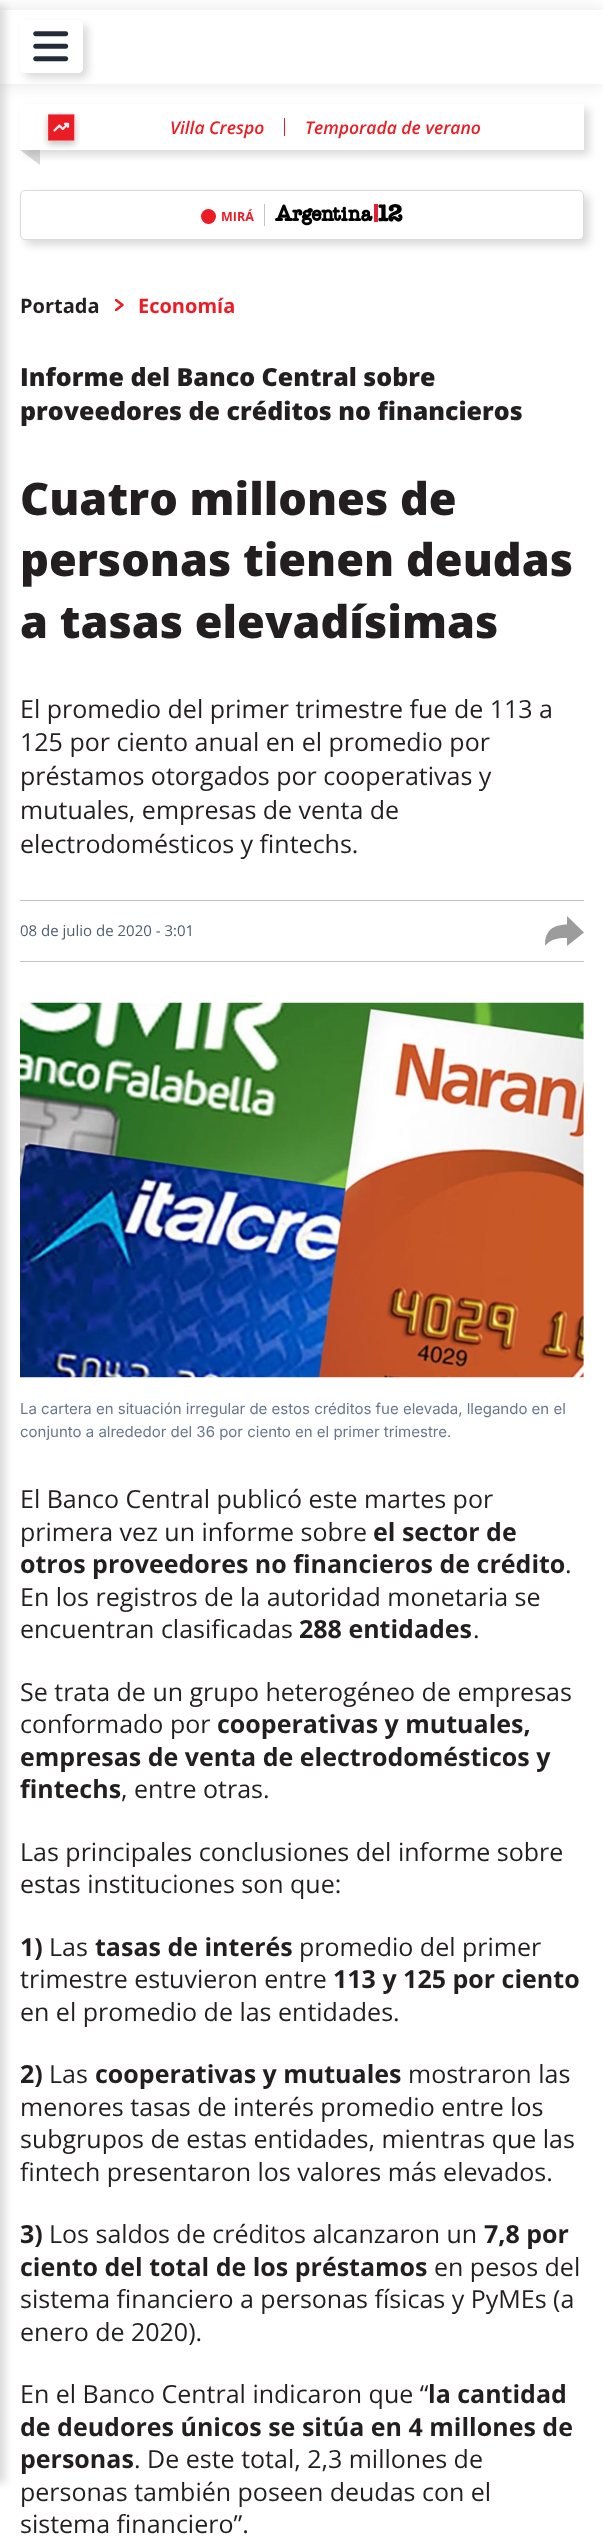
<!DOCTYPE html>
<meta charset="utf-8">
<style>body { margin: 0 } canvas { display: block }</style>
<canvas id="canvas" width="603" height="2545"></canvas>
<script type="module">
  const canvas = document.getElementById("canvas");
  const g = canvas.getContext("2d");
  g.miterLimit = 4;
  g.fontKerning = "normal";
  function drawText(s, x, y, [font, color]) {
    g.font = font;
    g.fillStyle = color;
    g.fillText(s, x, y);
  }
  function fillBox(x, y, w, h, color) {
    g.fillStyle = color;
    g.fillRect(x, y, w, h);
  }
  async function drawPicture(src, x, y, w, h) {
    const img = new Image();
    img.src = src;
    await img.decode();
    g.drawImage(img, x, y, w, h);
  }

  const s1 = ["italic 600 17.5px Open Sans", "#EC1C24"];
  const s2 = ["bold 12.5px Open Sans", "#EC1C24"];
  const s3 = ["bold 20px Open Sans", "#231F20"];
  const s4 = ["bold 20px Open Sans", "#EC1C24"];
  const s5 = ["800 25px Open Sans", "#231F20"];
  const s6 = ["800 45px Open Sans", "#231F20"];
  const s7 = ["25px Open Sans", "#231F20"];
  const s8 = ["15px Open Sans", "#4F5C71"];
  const s9 = ["15px Inter", "#69778E"];
  const s10 = ["bold 25px Open Sans", "#231F20"];

  fillBox(0, 0, 603, 2545, "#FFFFFF");
  g.fillStyle = "rgba(0, 0, 0, 0.1)";
  g.filter = "blur(9px)";
  g.beginPath();
  g.rect(0, 10, 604, 74);
  g.fill();
  g.filter = "none";
  fillBox(0, 10, 603, 74, "#FFFFFF");
  g.save();
  g.beginPath();
  g.moveTo(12, 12);
  g.lineTo(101, 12);
  g.lineTo(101, 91);
  g.lineTo(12, 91);
  g.closePath();
  g.moveTo(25, 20);
  g.lineTo(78, 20);
  g.bezierCurveTo(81, 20, 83, 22, 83, 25);
  g.lineTo(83, 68);
  g.bezierCurveTo(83, 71, 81, 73, 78, 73);
  g.lineTo(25, 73);
  g.bezierCurveTo(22, 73, 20, 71, 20, 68);
  g.lineTo(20, 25);
  g.bezierCurveTo(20, 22, 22, 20, 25, 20);
  g.closePath();
  g.clip("evenodd");
  g.fillStyle = "rgba(0, 0, 0, 0.15)";
  g.filter = "blur(4px)";
  g.beginPath();
  g.roundRect(25, 25, 63, 53, 5);
  g.fill();
  g.filter = "none";
  g.restore();
  g.beginPath();
  g.roundRect(20.5, 20.5, 62, 52, 4.5);
  g.strokeStyle = "#FFFFFF";
  g.stroke();
  await drawPicture("pic1.png", 33, 31, 36, 31);
  g.fillStyle = "rgba(0, 0, 0, 0.15)";
  g.filter = "blur(4px)";
  g.beginPath();
  g.rect(-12, 5, 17, 2478);
  g.fill();
  g.filter = "none";
  g.fillStyle = "#DADADA";
  g.beginPath();
  g.moveTo(40, 150);
  g.lineTo(40, 165);
  g.lineTo(20, 150);
  g.closePath();
  g.fill();
  g.save();
  g.beginPath();
  g.moveTo(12, 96);
  g.lineTo(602, 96);
  g.lineTo(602, 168);
  g.lineTo(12, 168);
  g.closePath();
  g.moveTo(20, 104);
  g.lineTo(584, 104);
  g.lineTo(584, 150);
  g.lineTo(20, 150);
  g.closePath();
  g.clip("evenodd");
  g.fillStyle = "rgba(0, 0, 0, 0.15)";
  g.filter = "blur(4px)";
  g.beginPath();
  g.rect(25, 109, 564, 46);
  g.fill();
  g.filter = "none";
  g.restore();
  await drawPicture("pic2.png", 43, 112, 37, 37);
  drawText("Villa Crespo", 170, 134, s1);
  fillBox(284, 118, 1, 18, "#EC1C24");
  drawText("Temporada de verano", 305, 134, s1);
  g.fillStyle = "rgba(0, 0, 0, 0.15)";
  g.filter = "blur(4px)";
  g.beginPath();
  g.roundRect(25, 195, 564, 50, 5);
  g.fill();
  g.filter = "none";
  g.fillStyle = "#FFFFFF";
  g.beginPath();
  g.roundRect(20.5, 190.5, 563, 49, 4.5);
  g.fill();
  g.strokeStyle = "#DADADA";
  g.stroke();
  g.fillStyle = "#EC1C24";
  g.beginPath();
  g.arc(208.5, 216.5, 7.5, 0, Math.PI * 2);
  g.fill();
  drawText("MIRÁ", 221, 221, s2);
  fillBox(264, 204, 1, 22, "#C4C4C4");
  await drawPicture("pic3.png", 275, 204, 128, 22);
  drawText("Portada", 20, 313, s3);
  g.save();
  g.beginPath();
  g.rect(115, 299, 9, 12);
  g.clip();
  g.beginPath();
  g.moveTo(116, 310);
  g.lineTo(122.5, 305);
  g.lineTo(116, 300);
  g.strokeStyle = "#EC1C24";
  g.lineWidth = 2.5;
  g.lineCap = "round";
  g.lineJoin = "round";
  g.stroke();
  g.restore();
  drawText("Economía", 138, 313, s4);
  drawText("Informe del Banco Central sobre", 20, 386, s5);
  drawText("proveedores de créditos no financieros", 20, 420, s5);
  drawText("Cuatro millones de", 20, 515, s6);
  drawText("personas tienen deudas", 20, 576, s6);
  drawText("a tasas elevadísimas", 20, 638, s6);
  drawText("El promedio del primer trimestre fue de 113 a", 20, 718, s7);
  drawText("125 por ciento anual en el promedio por", 20, 751, s7);
  drawText("préstamos otorgados por cooperativas y", 20, 785, s7);
  drawText("mutuales, empresas de venta de", 20, 819, s7);
  drawText("electrodomésticos y fintechs.", 20, 853, s7);
  fillBox(20, 900, 564, 1, "#C4C4C4");
  drawText("08 de julio de 2020 - 3:01", 20, 936, s8);
  g.fillStyle = "#9C9C9C";
  g.beginPath();
  g.moveTo(567, 924.5);
  g.lineTo(567, 916);
  g.lineTo(584, 932.5);
  g.lineTo(567, 946);
  g.lineTo(567, 938);
  g.bezierCurveTo(550.5, 937, 545, 946, 545, 946);
  g.bezierCurveTo(545, 940.5, 545.5, 934.5, 550, 930);
  g.bezierCurveTo(555.5, 925, 563, 924.5, 567, 924.5);
  g.closePath();
  g.fill();
  fillBox(20, 961, 564, 1, "#C4C4C4");
  await drawPicture("pic4.png", 20, 1002, 564, 376);
  drawText("La cartera en situación irregular de estos créditos fue elevada, llegando en el", 20, 1414, s9);
  drawText("conjunto a alrededor del 36 por ciento en el primer trimestre.", 20, 1437, s9);
  drawText("El Banco Central publicó este martes por", 20, 1508, s7);
  drawText("primera vez un informe sobre", 20, 1541, s7);
  drawText("el sector de", 373, 1541, s10);
  drawText("otros proveedores no financieros de crédito", 20, 1573, s10);
  drawText(".", 565, 1573, s7);
  drawText("En los registros de la autoridad monetaria se", 20, 1606, s7);
  drawText("encuentran clasificadas", 20, 1638, s7);
  drawText("288 entidades", 299, 1638, s10);
  drawText(".", 473, 1638, s7);
  drawText("Se trata de un grupo heterogéneo de empresas", 20, 1701, s7);
  drawText("conformado por", 20, 1733, s7);
  drawText("cooperativas y mutuales,", 217, 1733, s10);
  drawText("empresas de venta de electrodomésticos y", 20, 1766, s10);
  drawText("fintechs", 20, 1798, s10);
  drawText(", entre otras.", 121, 1798, s7);
  drawText("Las principales conclusiones del informe sobre", 20, 1861, s7);
  drawText("estas instituciones son que:", 20, 1893, s7);
  drawText("1)", 20, 1956, s10);
  drawText("Las", 49, 1956, s7);
  drawText("tasas de interés", 95, 1956, s10);
  drawText("promedio del primer", 299, 1956, s7);
  drawText("trimestre estuvieron entre", 20, 1988, s7);
  drawText("113 y 125 por ciento", 333, 1988, s10);
  drawText("en el promedio de las entidades.", 20, 2021, s7);
  drawText("2)", 20, 2083, s10);
  drawText("Las", 49, 2083, s7);
  drawText("cooperativas y mutuales", 95, 2083, s10);
  drawText("mostraron las", 408, 2083, s7);
  drawText("menores tasas de interés promedio entre los", 20, 2116, s7);
  drawText("subgrupos de estas entidades, mientras que las", 20, 2148, s7);
  drawText("fintech presentaron los valores más elevados.", 20, 2181, s7);
  drawText("3)", 20, 2243, s10);
  drawText("Los saldos de créditos alcanzaron un", 49, 2243, s7);
  drawText("7,8 por", 484, 2243, s10);
  drawText("ciento del total de los préstamos", 20, 2276, s10);
  drawText("en pesos del", 434, 2276, s7);
  drawText("sistema financiero a personas físicas y PyMEs (a", 20, 2308, s7);
  drawText("enero de 2020).", 20, 2341, s7);
  drawText("En el Banco Central indicaron que “", 20, 2403, s7);
  drawText("la cantidad", 428, 2403, s10);
  drawText("de deudores únicos se sitúa en 4 millones de", 20, 2436, s10);
  drawText("personas", 20, 2468, s10);
  drawText(". De este total, 2,3 millones de", 134, 2468, s7);
  drawText("personas también poseen deudas con el", 20, 2501, s7);
  drawText("sistema financiero”.", 20, 2533, s7);
</script>
